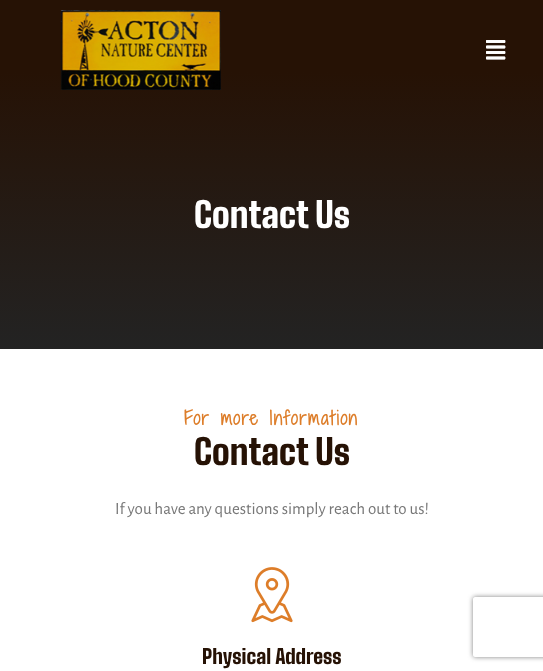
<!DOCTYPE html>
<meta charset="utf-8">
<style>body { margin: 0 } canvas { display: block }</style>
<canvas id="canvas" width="543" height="671"></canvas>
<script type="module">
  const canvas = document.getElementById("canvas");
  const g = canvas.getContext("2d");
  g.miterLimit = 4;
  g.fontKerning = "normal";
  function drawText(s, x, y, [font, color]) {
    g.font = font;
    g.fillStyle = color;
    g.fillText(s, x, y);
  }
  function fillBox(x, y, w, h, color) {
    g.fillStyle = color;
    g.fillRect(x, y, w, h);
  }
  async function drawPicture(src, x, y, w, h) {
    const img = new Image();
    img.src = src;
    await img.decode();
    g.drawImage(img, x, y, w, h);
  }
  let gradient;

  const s1 = ["900 35px Big Shoulders Text", "#FFFFFF"];
  const s2 = ["bold 18px Shadows Into Light Two", "#DD7D29"];
  const s3 = ["900 35px Big Shoulders Text", "#261205"];
  const s4 = ["17px Alegreya Sans", "#777777"];
  const s5 = ["900 20px Big Shoulders Text", "#261205"];

  fillBox(0, 0, 543, 671, "#FFFFFF");
  gradient = g.createLinearGradient(272, -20, 272, 349);
  gradient.addColorStop(0.25, "#261205");
  gradient.addColorStop(1, "#232323");
  g.fillStyle = gradient;
  g.fillRect(0, 0, 543, 349);
  await drawPicture("pic1.png", 60, 10, 161, 80);
  await drawPicture("pic2.png", 486, 40, 20, 20);
  await drawPicture("pic3.png", 486, 40, 20, 20);
  drawText("Contact Us", 194, 228, s1);
  g.letterSpacing = "1.5px";
  drawText("For more Information", 184, 425, s2);
  g.letterSpacing = "0px";
  drawText("Contact Us", 194, 465, s3);
  drawText("If you have any questions simply reach out to us!", 115, 514, s4);
  await drawPicture("pic4.png", 251, 567, 42, 56);
  drawText("Physical Address", 202, 664, s5);
  g.save();
  g.beginPath();
  g.moveTo(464, 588);
  g.lineTo(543, 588);
  g.lineTo(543, 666);
  g.lineTo(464, 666);
  g.closePath();
  g.moveTo(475, 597);
  g.lineTo(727, 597);
  g.bezierCurveTo(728, 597, 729, 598, 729, 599);
  g.lineTo(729, 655);
  g.bezierCurveTo(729, 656, 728, 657, 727, 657);
  g.lineTo(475, 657);
  g.bezierCurveTo(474, 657, 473, 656, 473, 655);
  g.lineTo(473, 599);
  g.bezierCurveTo(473, 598, 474, 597, 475, 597);
  g.closePath();
  g.clip("evenodd");
  g.fillStyle = "#808080";
  g.filter = "blur(2.5px)";
  g.beginPath();
  g.roundRect(473, 597, 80, 60, 2);
  g.fill();
  g.filter = "none";
  g.restore();
</script>
